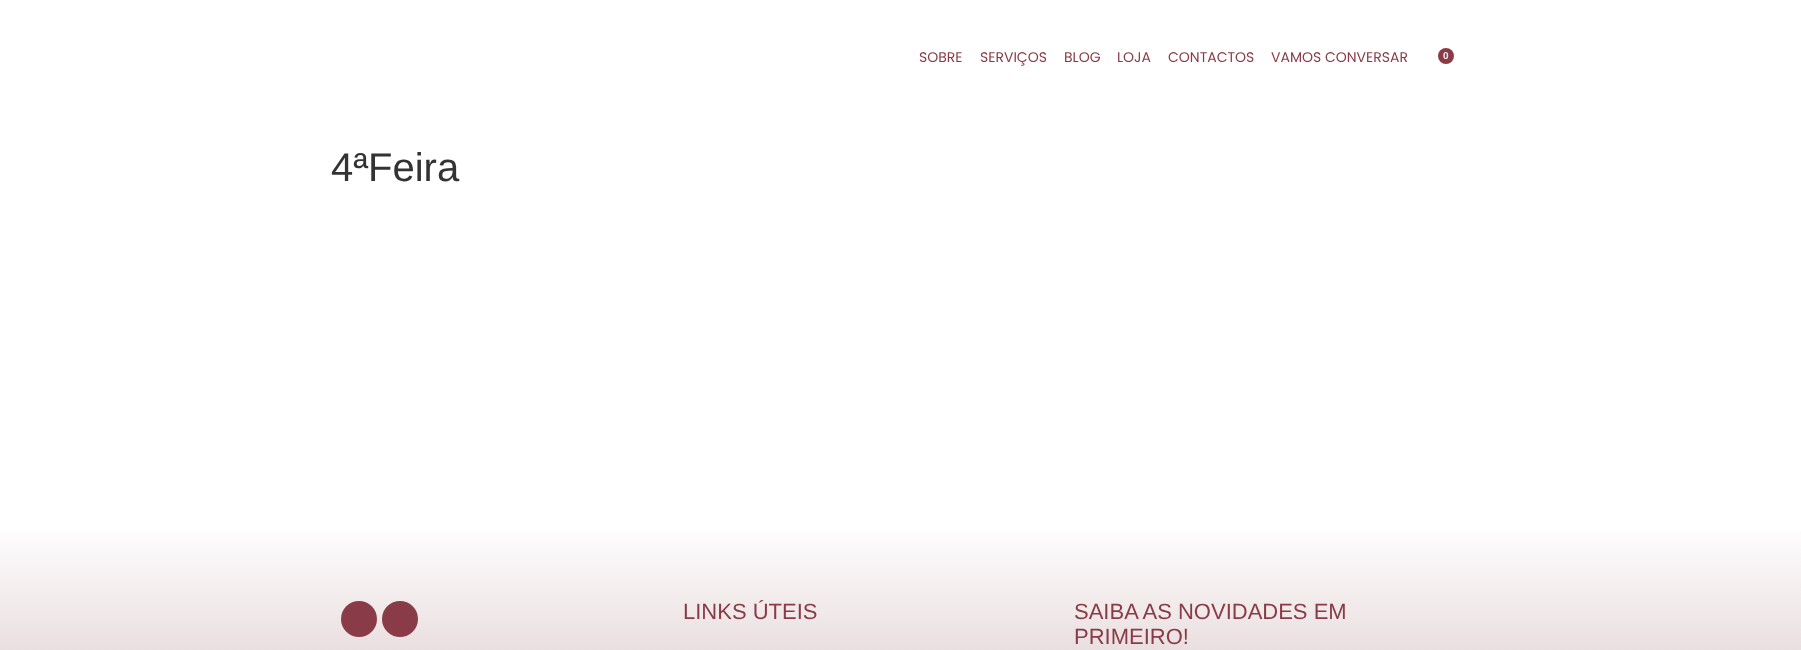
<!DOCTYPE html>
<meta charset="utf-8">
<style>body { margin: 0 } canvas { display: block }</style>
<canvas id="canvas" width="1801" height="650"></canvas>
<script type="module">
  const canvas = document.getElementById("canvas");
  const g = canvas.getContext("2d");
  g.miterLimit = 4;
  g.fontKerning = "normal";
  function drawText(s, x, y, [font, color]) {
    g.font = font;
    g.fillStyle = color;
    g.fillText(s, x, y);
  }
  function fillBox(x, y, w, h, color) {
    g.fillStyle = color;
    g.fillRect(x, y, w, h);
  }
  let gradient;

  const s1 = ["14px Poppins", "#893C47"];
  const s2 = ["bold 10px Liberation Sans", "#F7EBF7"];
  const s3 = ["40px Liberation Sans", "#333333"];
  const s4 = ["22px Liberation Sans", "#893C47"];

  fillBox(0, 0, 1801, 650, "#FFFFFF");
  drawText("SOBRE", 919, 62, s1);
  drawText("SERVIÇOS", 980, 62, s1);
  drawText("BLOG", 1064, 62, s1);
  drawText("LOJA", 1117, 62, s1);
  drawText("CONTACTOS", 1168, 62, s1);
  drawText("VAMOS CONVERSAR", 1271, 62, s1);
  g.beginPath();
  g.arc(1446, 56, 8, 0, Math.PI * 2);
  g.fill();
  drawText("0", 1443, 59, s2);
  drawText("4ªFeira", 331, 181, s3);
  gradient = g.createLinearGradient(901, 521, 901, 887);
  gradient.addColorStop(0, "#FFFFFF");
  gradient.addColorStop(1, "#C4A4A7");
  g.fillStyle = gradient;
  g.fillRect(0, 531, 1801, 119);
  g.fillStyle = "#893C47";
  g.beginPath();
  g.arc(359, 619, 18, 0, Math.PI * 2);
  g.fill();
  g.beginPath();
  g.arc(400, 619, 18, 0, Math.PI * 2);
  g.fill();
  drawText("LINKS ÚTEIS", 683, 619, s4);
  drawText("SAIBA AS NOVIDADES EM", 1074, 619, s4);
  drawText("PRIMEIRO!", 1074, 644, s4);
</script>
